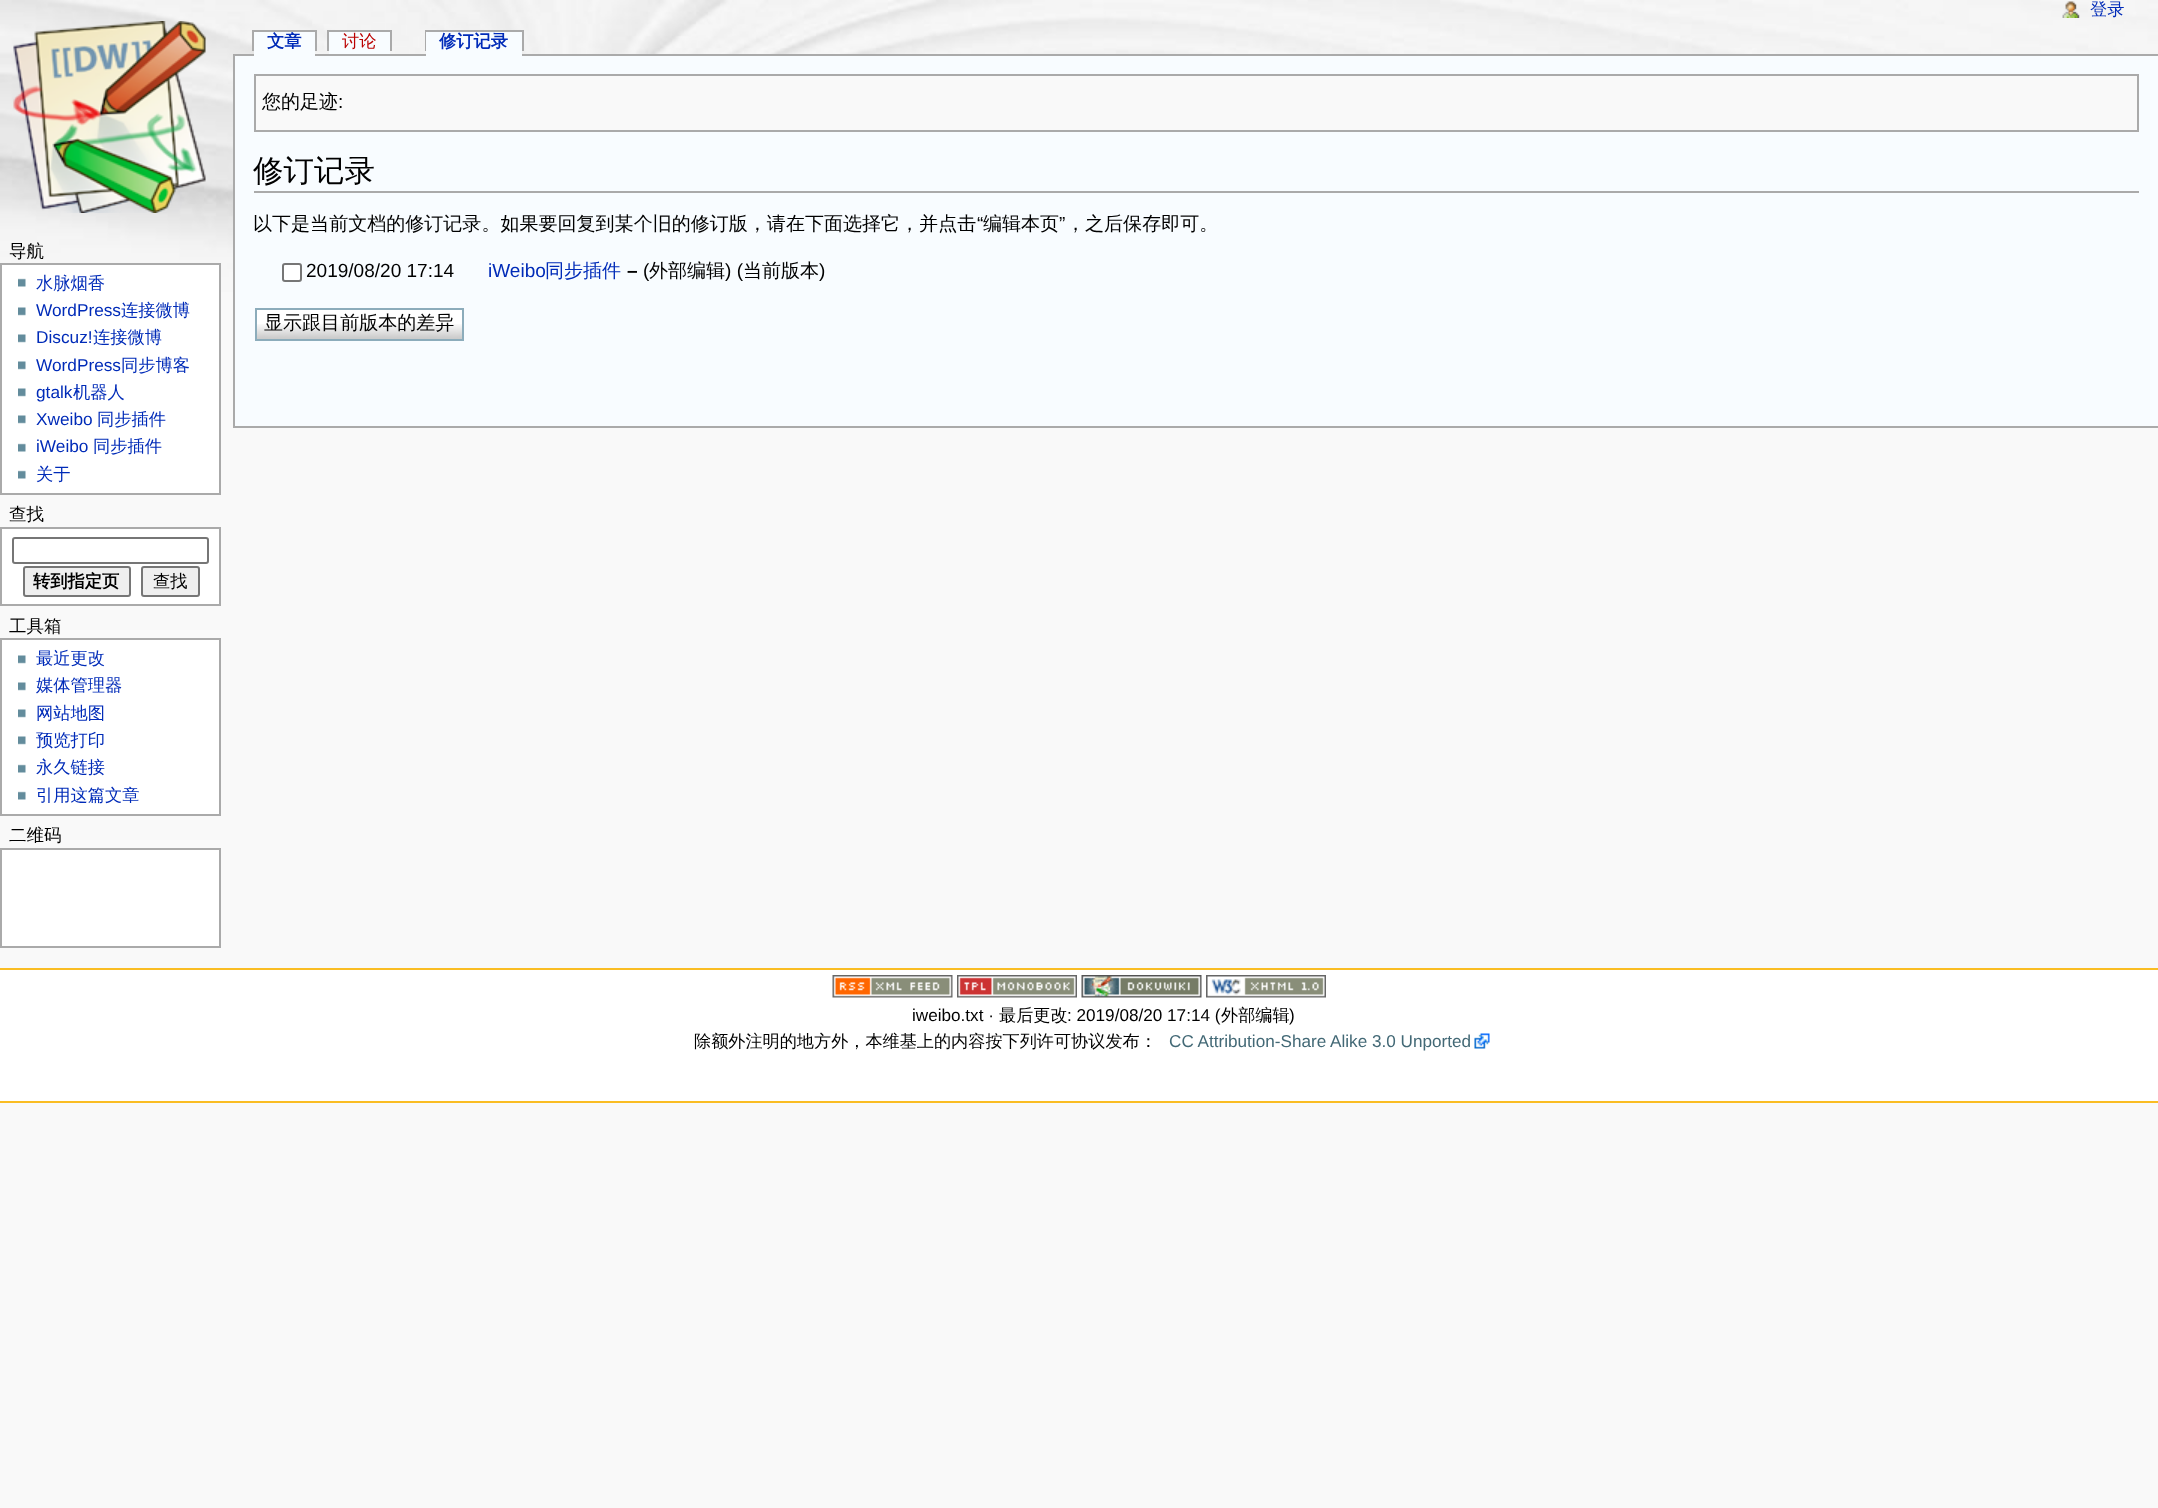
<!DOCTYPE html>
<meta charset="utf-8">
<style>body { margin: 0 } canvas { display: block }</style>
<canvas id="canvas" width="2158" height="1508"></canvas>
<script type="module">
  const canvas = document.getElementById("canvas");
  const g = canvas.getContext("2d");
  g.miterLimit = 4;
  g.fontKerning = "normal";
  function drawText(s, x, y, [font, color]) {
    g.font = font;
    g.fillStyle = color;
    g.fillText(s, x, y);
  }
  function fillBox(x, y, w, h, color) {
    g.fillStyle = color;
    g.fillRect(x, y, w, h);
  }
  async function drawPicture(src, x, y, w, h) {
    const img = new Image();
    img.src = src;
    await img.decode();
    g.drawImage(img, x, y, w, h);
  }

  const s1 = ["500 17.25px WenQuanYi Zen Hei", "#002BB8"];
  const s2 = ["bold 17.25px WenQuanYi Zen Hei", "#002BB8"];
  const s3 = ["500 17.25px WenQuanYi Zen Hei", "#BA0000"];
  const s4 = ["500 17.5px WenQuanYi Zen Hei", "#000000"];
  const s5 = ["17.25px Liberation Sans", "#002BB8"];
  const s6 = ["bold 17.25px WenQuanYi Zen Hei", "#000000"];
  const s7 = ["500 17.25px WenQuanYi Zen Hei", "#000000"];
  const s8 = ["500 19.05px WenQuanYi Zen Hei", "#000000"];
  const s9 = ["19.05px Liberation Sans", "#000000"];
  const s10 = ["500 30.5px WenQuanYi Zen Hei", "#000000"];
  const s11 = ["19.05px Liberation Sans", "#002BB8"];
  const s12 = ["500 19.05px WenQuanYi Zen Hei", "#002BB8"];
  const s13 = ["bold 19.05px Liberation Sans", "#000000"];
  const s14 = ["17.15px Liberation Sans", "#000000"];
  const s15 = ["500 17.15px WenQuanYi Zen Hei", "#000000"];
  const s16 = ["17.15px Liberation Sans", "#436976"];

  fillBox(0, 0, 2158, 1508, "#F9F9F9");
  await drawPicture("pic1.png", 0, 0, 2158, 292);
  await drawPicture("pic2.png", 2062, 1, 18, 17);
  drawText("登录", 2090, 15, s1);
  await drawPicture("pic3.png", 13, 21, 193, 192);
  fillBox(233, 54, 1925, 2, "#AAAAAA");
  fillBox(254, 32, 61, 24, "#F8FCFF");
  drawText("文章", 267, 47, s2);
  fillBox(252, 30, 65, 2, "#AAAAAA");
  fillBox(315, 30, 2, 21, "#AAAAAA");
  fillBox(252, 30, 2, 21, "#AAAAAA");
  fillBox(329, 32, 61, 22, "#F8FCFF");
  drawText("讨论", 342, 47, s3);
  fillBox(327, 30, 65, 2, "#AAAAAA");
  fillBox(390, 30, 2, 21, "#AAAAAA");
  fillBox(327, 30, 2, 21, "#AAAAAA");
  fillBox(425, 30, 99, 2, "#AAAAAA");
  fillBox(425, 30, 2, 21, "#AAAAAA");
  fillBox(426, 32, 96, 24, "#F8FCFF");
  drawText("修订记录", 439, 47, s2);
  fillBox(522, 30, 2, 21, "#AAAAAA");
  drawText("导航", 9, 257, s4);
  g.fillStyle = "#FFFFFF";
  g.beginPath();
  g.rect(1, 264, 219, 230);
  g.fill();
  g.strokeStyle = "#AAAAAA";
  g.lineWidth = 2;
  g.stroke();
  await drawPicture("pic4.png", 18, 278, 8, 9);
  drawText("水脉烟香", 36, 289, s1);
  await drawPicture("pic5.png", 18, 307, 8, 9);
  drawText("WordPress", 36, 316, s5);
  drawText("连接微博", 121, 316, s1);
  await drawPicture("pic5.png", 18, 334, 8, 9);
  drawText("Discuz!", 36, 343, s5);
  drawText("连接微博", 93, 343, s1);
  await drawPicture("pic5.png", 18, 361, 8, 9);
  drawText("WordPress", 36, 371, s5);
  drawText("同步博客", 121, 371, s1);
  await drawPicture("pic5.png", 18, 388, 8, 9);
  drawText("gtalk", 36, 398, s5);
  drawText("机器人", 73, 398, s1);
  await drawPicture("pic5.png", 18, 415, 8, 9);
  drawText("Xweibo", 36, 425, s5);
  drawText("同步插件", 97, 425, s1);
  await drawPicture("pic4.png", 18, 443, 8, 9);
  drawText("iWeibo", 36, 452, s5);
  drawText("同步插件", 93, 452, s1);
  await drawPicture("pic4.png", 18, 470, 8, 9);
  drawText("关于", 36, 480, s1);
  drawText("查找", 9, 520, s4);
  g.fillStyle = "#FFFFFF";
  g.beginPath();
  g.rect(1, 528, 219, 77);
  g.fill();
  g.stroke();
  g.beginPath();
  g.roundRect(13, 538, 195, 25, 2);
  g.strokeStyle = "#767676";
  g.stroke();
  g.fillStyle = "#EFEFEF";
  g.beginPath();
  g.roundRect(24, 567, 106, 29, 2);
  g.fill();
  g.stroke();
  drawText("转到指定页", 33, 587, s6);
  g.fillStyle = "#EFEFEF";
  g.beginPath();
  g.roundRect(142, 567, 57, 29, 2);
  g.fill();
  g.stroke();
  drawText("查找", 153, 587, s7);
  drawText("工具箱", 9, 632, s4);
  g.fillStyle = "#FFFFFF";
  g.beginPath();
  g.rect(1, 639, 219, 176);
  g.fill();
  g.strokeStyle = "#AAAAAA";
  g.stroke();
  await drawPicture("pic5.png", 18, 655, 8, 9);
  drawText("最近更改", 36, 664, s1);
  await drawPicture("pic5.png", 18, 682, 8, 9);
  drawText("媒体管理器", 36, 691, s1);
  await drawPicture("pic5.png", 18, 709, 8, 9);
  drawText("网站地图", 36, 719, s1);
  await drawPicture("pic5.png", 18, 736, 8, 9);
  drawText("预览打印", 36, 746, s1);
  await drawPicture("pic4.png", 18, 764, 8, 9);
  drawText("永久链接", 36, 773, s1);
  await drawPicture("pic4.png", 18, 791, 8, 9);
  drawText("引用这篇文章", 36, 801, s1);
  drawText("二维码", 9, 841, s4);
  g.fillStyle = "#FFFFFF";
  g.beginPath();
  g.rect(1, 849, 219, 98);
  g.fill();
  g.stroke();
  fillBox(235, 56, 1923, 370, "#F8FCFF");
  fillBox(233, 426, 1925, 2, "#AAAAAA");
  fillBox(233, 54, 2, 374, "#AAAAAA");
  g.fillStyle = "#F9F9F9";
  g.beginPath();
  g.rect(255, 75, 1883, 56);
  g.fill();
  g.stroke();
  drawText("您的足迹", 262, 108, s8);
  drawText(":", 338, 108, s9);
  fillBox(254, 191, 1885, 2, "#AAAAAA");
  drawText("修订记录", 253, 181, s10);
  drawText("以下是当前文档的修订记录。如果要回复到某个旧的修订版，请在下面选择它，并点击", 253, 230, s8);
  drawText("“", 977, 230, s9);
  drawText("编辑本页", 983, 230, s8);
  drawText("”", 1059, 230, s9);
  drawText("，之后保存即可。", 1066, 230, s8);
  g.fillStyle = "#FFFFFF";
  g.beginPath();
  g.roundRect(283, 264, 18, 17, 2);
  g.fill();
  g.strokeStyle = "#767676";
  g.stroke();
  drawText("2019/08/20 17:14", 306, 277, s9);
  drawText("iWeibo", 488, 277, s11);
  drawText("同步插件", 545, 277, s12);
  drawText("–", 627, 277, s13);
  drawText("(", 643, 277, s9);
  drawText("外部编辑", 649, 277, s8);
  drawText(") (", 725, 277, s9);
  drawText("当前版本", 743, 277, s8);
  drawText(")", 819, 277, s9);
  fillBox(257, 310, 205, 28, "#FFFFFF");
  await drawPicture("pic6.png", 257, 324, 205, 15);
  g.strokeStyle = "#8CACBB";
  g.strokeRect(256, 309, 207, 31);
  drawText("显示跟目前版本的差异", 264, 329, s8);
  fillBox(0, 970, 2158, 131, "#FFFFFF");
  fillBox(0, 968, 2158, 2, "#FABD23");
  fillBox(0, 1101, 2158, 2, "#FABD23");
  await drawPicture("pic7.png", 832, 975, 121, 23);
  await drawPicture("pic8.png", 957, 975, 120, 23);
  await drawPicture("pic9.png", 1081, 975, 121, 23);
  await drawPicture("pic10.png", 1206, 975, 120, 23);
  drawText("iweibo.txt ·", 912, 1021, s14);
  drawText("最后更改", 999, 1021, s15);
  drawText(": 2019/08/20 17:14 (", 1067, 1021, s14);
  drawText("外部编辑", 1221, 1021, s15);
  drawText(")", 1289, 1021, s14);
  drawText("除额外注明的地方外，本维基上的内容按下列许可协议发布：", 694, 1047, s15);
  drawText("CC Attribution-Share Alike 3.0 Unported", 1169, 1047, s16);
  await drawPicture("pic11.png", 1474, 1033, 16, 16);
</script>
